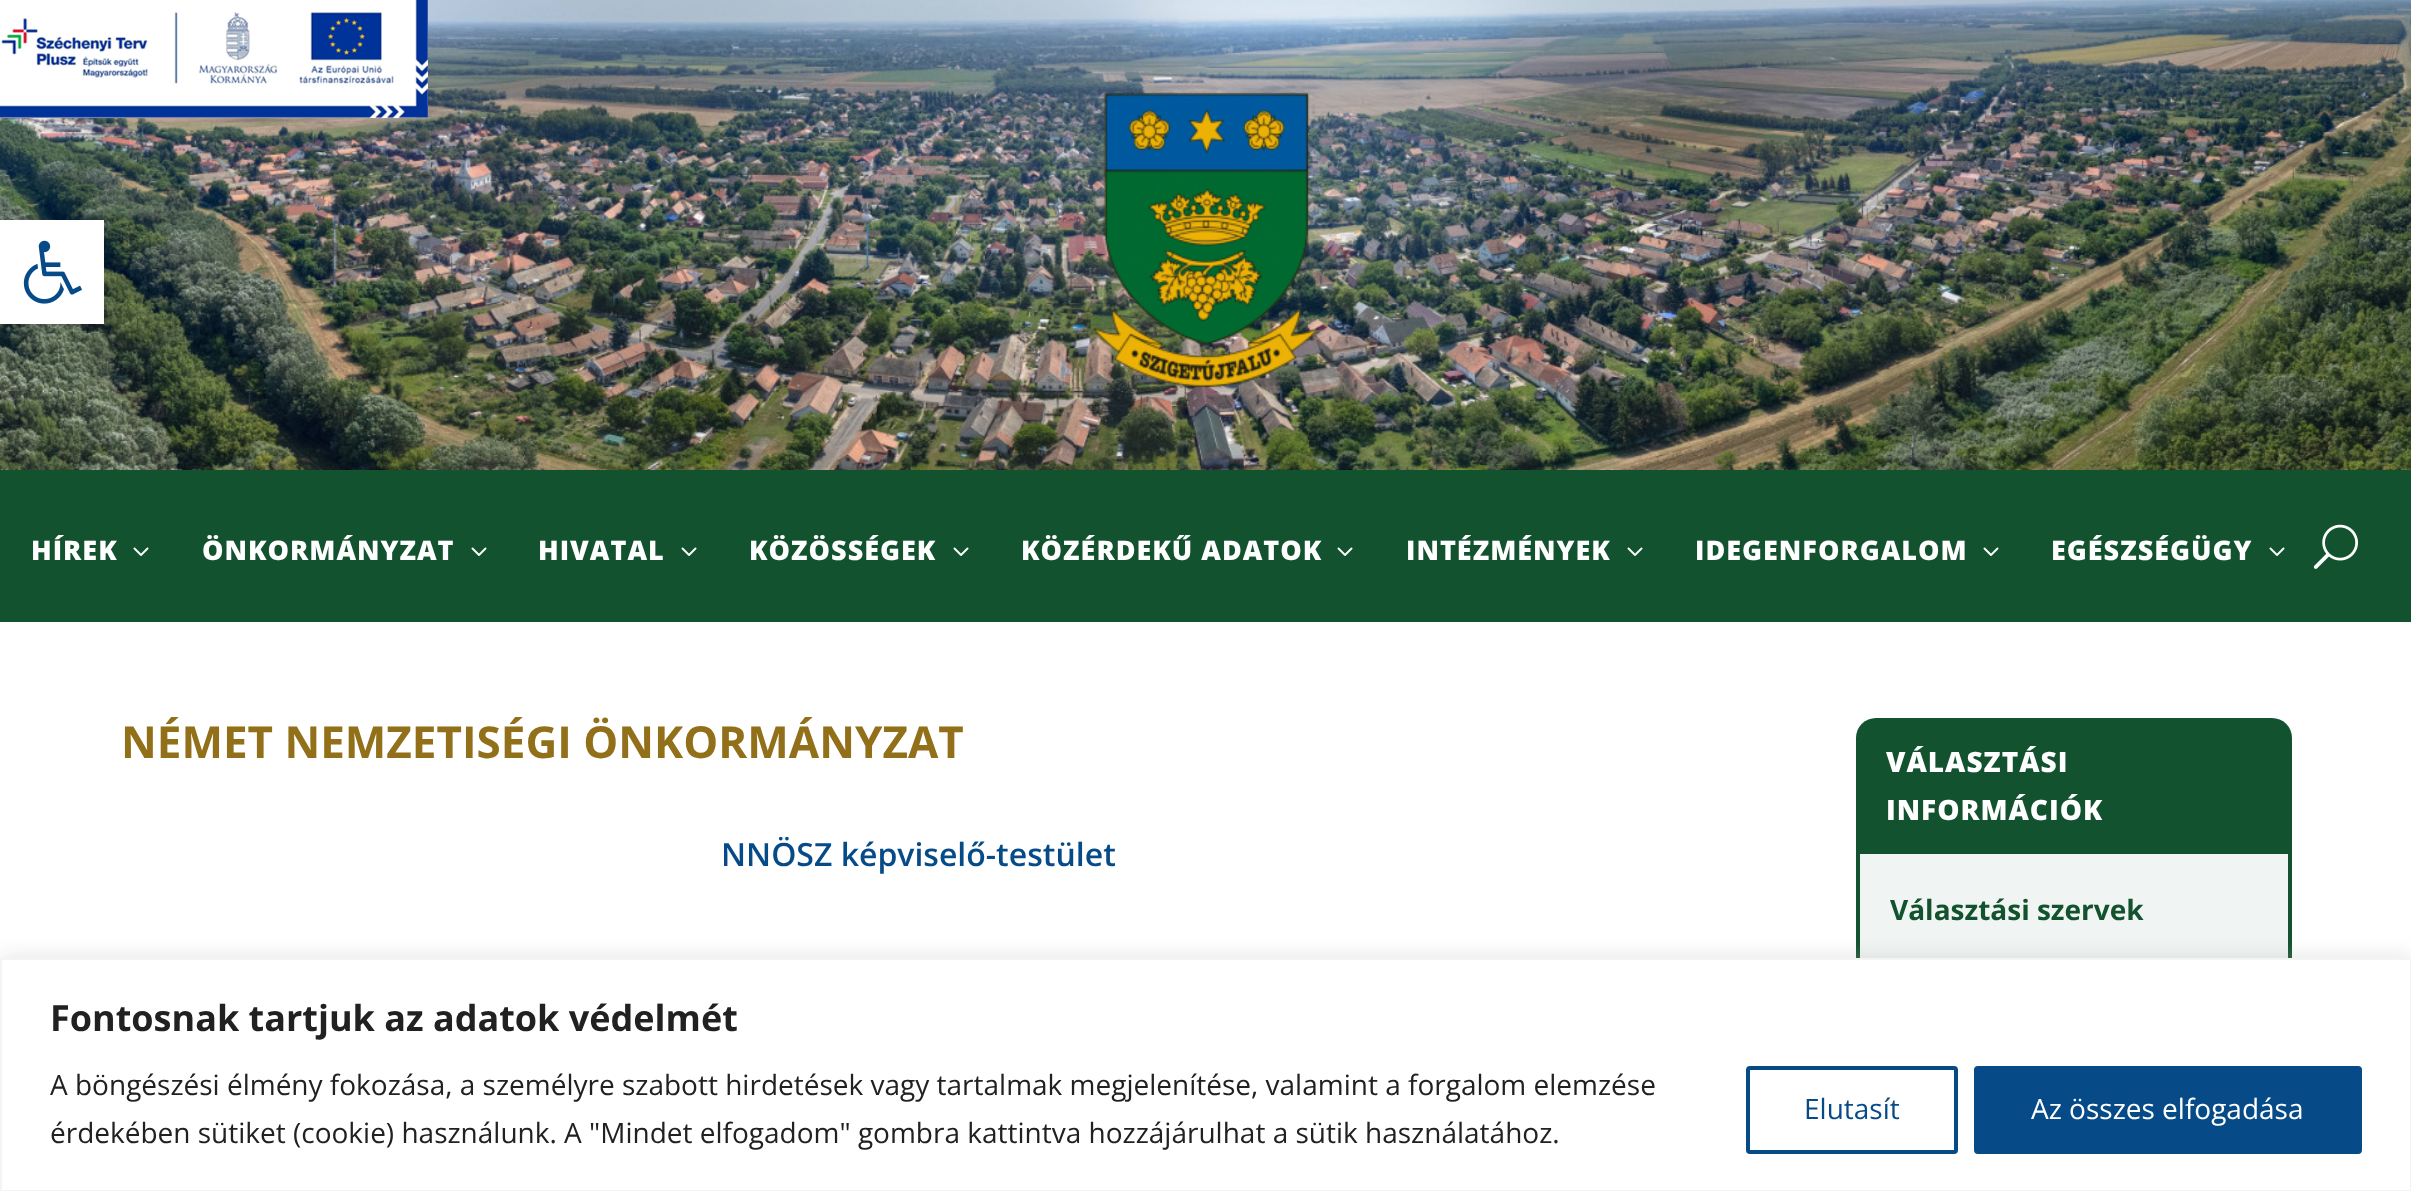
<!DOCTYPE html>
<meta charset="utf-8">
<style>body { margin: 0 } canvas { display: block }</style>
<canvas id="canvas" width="2411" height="1191"></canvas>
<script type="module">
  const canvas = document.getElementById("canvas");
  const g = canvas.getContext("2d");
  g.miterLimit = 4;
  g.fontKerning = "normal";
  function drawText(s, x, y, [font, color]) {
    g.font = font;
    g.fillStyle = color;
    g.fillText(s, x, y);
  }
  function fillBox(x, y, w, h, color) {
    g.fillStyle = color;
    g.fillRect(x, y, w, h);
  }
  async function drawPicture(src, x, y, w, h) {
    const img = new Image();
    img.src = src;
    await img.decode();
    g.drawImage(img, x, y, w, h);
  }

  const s1 = ["800 27px Open Sans", "#FFFFFF"];
  const s2 = ["bold 44px Open Sans", "#926F19"];
  const s3 = ["600 32px Open Sans", "#064B87"];
  const s4 = ["800 28px Open Sans", "#FFFFFF"];
  const s5 = ["bold 28px Open Sans", "#12522E"];
  const s6 = ["bold 36px Open Sans", "#212121"];
  const s7 = ["28px Open Sans", "#212121"];
  const s8 = ["28px Open Sans", "#064B87"];
  const s9 = ["28px Open Sans", "#FFFFFF"];

  fillBox(0, 0, 2411, 1191, "#FFFFFF");
  await drawPicture("pic2.png", 0, 0, 2411, 470);
  g.fillStyle = "rgba(0, 0, 0, 0.1)";
  g.filter = "blur(10px)";
  g.beginPath();
  g.rect(0, 220, 104, 104);
  g.fill();
  g.filter = "none";
  fillBox(0, 220, 104, 104, "#FFFFFF");
  await drawPicture("pic1.png", 23, 240, 59, 64);
  await drawPicture("pic3.png", 0, 0, 428, 118);
  await drawPicture("pic4.png", 1092, 92, 228, 296);
  fillBox(0, 470, 2411, 152, "#12522E");
  g.letterSpacing = "1px";
  drawText("HÍREK", 31, 560, s1);
  await drawPicture("pic5.png", 133, 547, 16, 9);
  drawText("ÖNKORMÁNYZAT", 202, 560, s1);
  await drawPicture("pic5.png", 471, 547, 16, 9);
  drawText("HIVATAL", 538, 560, s1);
  await drawPicture("pic5.png", 681, 547, 16, 9);
  drawText("KÖZÖSSÉGEK", 749, 560, s1);
  await drawPicture("pic5.png", 953, 547, 16, 9);
  drawText("KÖZÉRDEKŰ ADATOK", 1021, 560, s1);
  await drawPicture("pic5.png", 1337, 547, 16, 9);
  drawText("INTÉZMÉNYEK", 1406, 560, s1);
  await drawPicture("pic5.png", 1627, 547, 16, 9);
  drawText("IDEGENFORGALOM", 1695, 560, s1);
  await drawPicture("pic5.png", 1983, 547, 16, 9);
  drawText("EGÉSZSÉGÜGY", 2051, 560, s1);
  await drawPicture("pic5.png", 2269, 547, 16, 9);
  await drawPicture("pic6.png", 2313, 524, 45, 45);
  g.letterSpacing = "0px";
  drawText("NÉMET NEMZETISÉGI ÖNKORMÁNYZAT", 121, 758, s2);
  drawText("NNÖSZ képviselő-testület", 721, 866, s3);
  g.fillStyle = "#12522E";
  g.beginPath();
  g.roundRect(1856, 718, 436, 136, [20, 20, 0, 0]);
  g.fill();
  g.letterSpacing = "1px";
  drawText("VÁLASZTÁSI", 1886, 772, s4);
  drawText("INFORMÁCIÓK", 1886, 820, s4);
  fillBox(1860, 854, 428, 104, "#F0F4F2");
  g.fillStyle = "#12522E";
  g.beginPath();
  g.moveTo(1856, 854);
  g.lineTo(2292, 854);
  g.lineTo(2292, 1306);
  g.bezierCurveTo(2292, 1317, 2283, 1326, 2272, 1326);
  g.lineTo(1876, 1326);
  g.bezierCurveTo(1865, 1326, 1856, 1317, 1856, 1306);
  g.closePath();
  g.moveTo(1860, 854);
  g.lineTo(2288, 854);
  g.lineTo(2288, 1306);
  g.bezierCurveTo(2288, 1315, 2281, 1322, 2272, 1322);
  g.lineTo(1876, 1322);
  g.bezierCurveTo(1867, 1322, 1860, 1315, 1860, 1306);
  g.closePath();
  g.fill("evenodd");
  g.letterSpacing = "0px";
  drawText("Választási szervek", 1890, 920, s5);
  g.fillStyle = "rgba(172, 171, 171, 0.3)";
  g.filter = "blur(10px)";
  g.beginPath();
  g.rect(0, 956, 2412, 234);
  g.fill();
  g.filter = "none";
  g.fillStyle = "#FFFFFF";
  g.beginPath();
  g.rect(1, 959, 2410, 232);
  g.fill();
  g.strokeStyle = "#F4F4F4";
  g.lineWidth = 2;
  g.stroke();
  drawText("Fontosnak tartjuk az adatok védelmét", 50, 1031, s6);
  drawText("A böngészési élmény fokozása, a személyre szabott hirdetések vagy tartalmak megjelenítése, valamint a forgalom elemzése", 50, 1095, s7);
  drawText("érdekében sütiket (cookie) használunk. A \"Mindet elfogadom\" gombra kattintva hozzájárulhat a sütik használatához.", 50, 1143, s7);
  g.beginPath();
  g.roundRect(1748, 1068, 208, 84, 2);
  g.strokeStyle = "#064B87";
  g.lineWidth = 4;
  g.stroke();
  drawText("Elutasít", 1804, 1119, s8);
  g.beginPath();
  g.roundRect(1976, 1068, 384, 84, 2);
  g.fill();
  g.stroke();
  drawText("Az összes elfogadása", 2031, 1119, s9);
</script>
